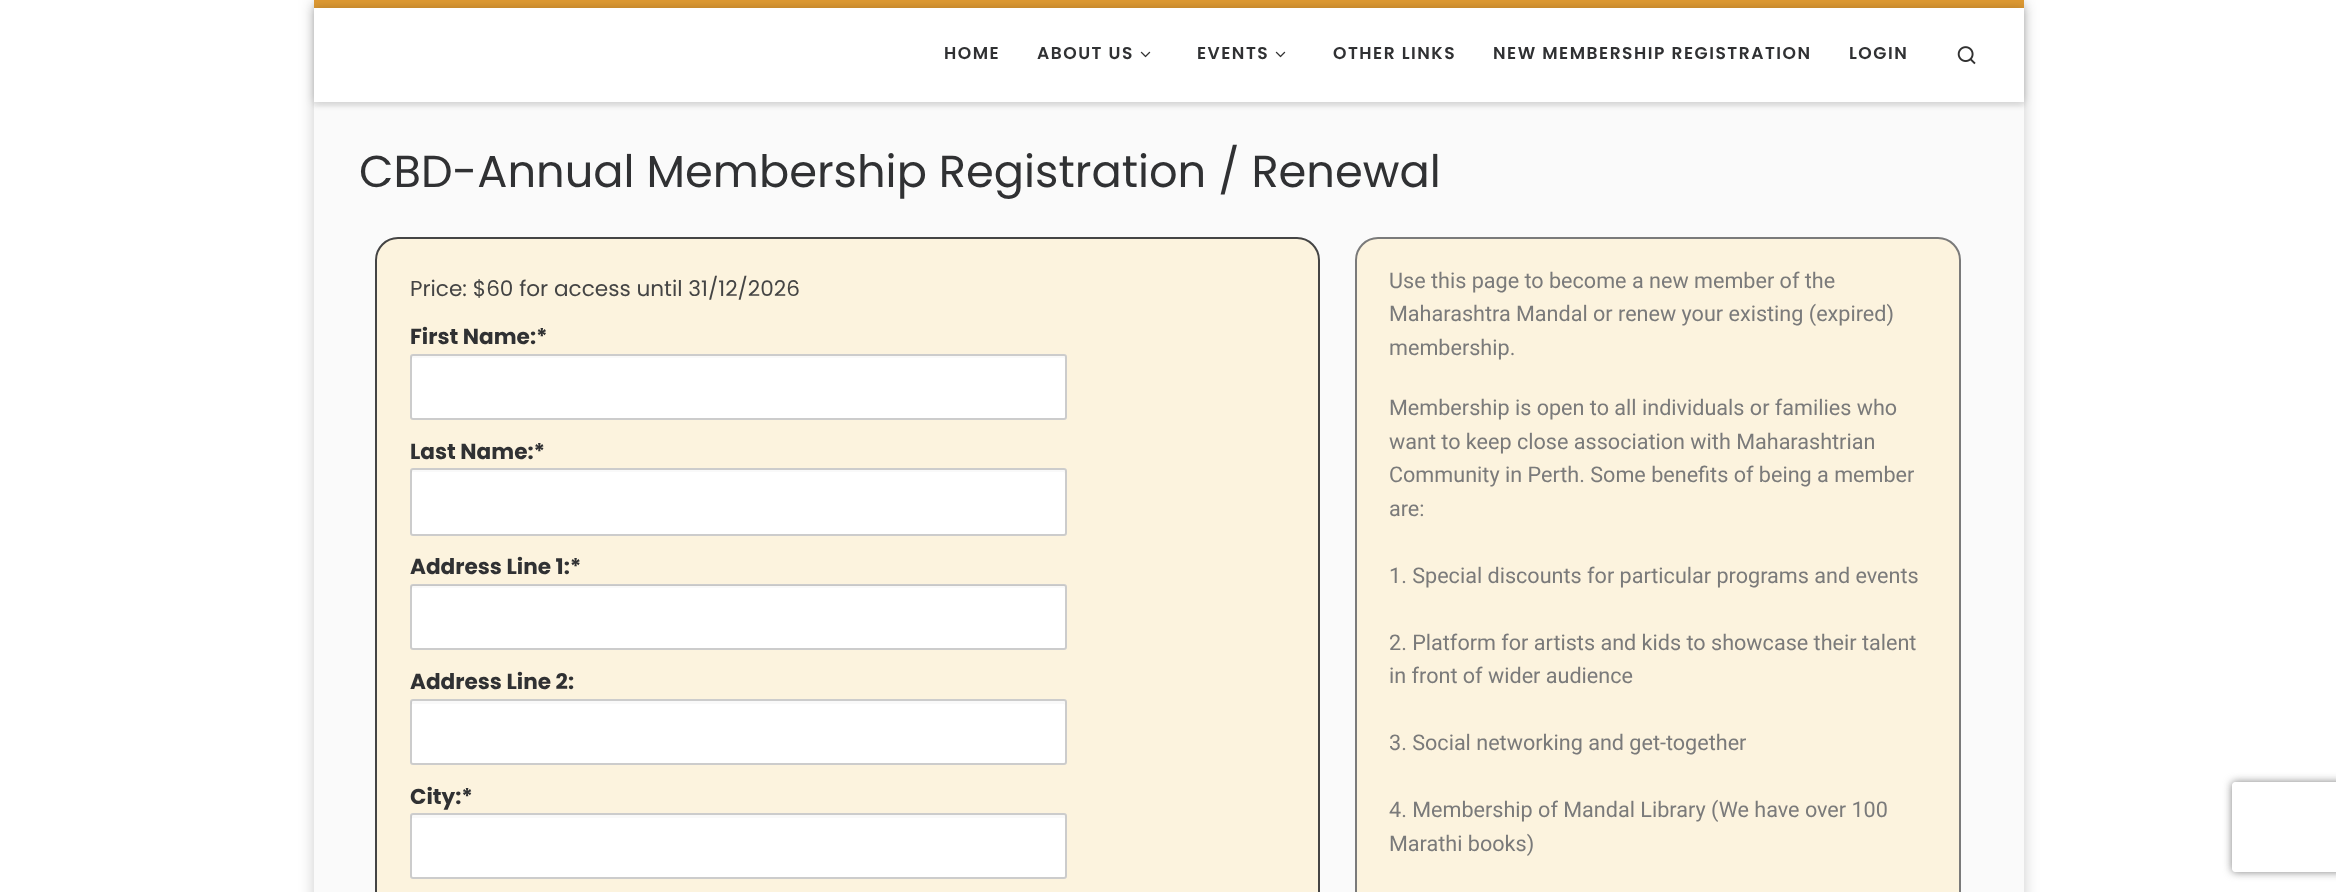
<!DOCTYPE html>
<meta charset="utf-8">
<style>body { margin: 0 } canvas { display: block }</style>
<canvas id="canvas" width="2336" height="892"></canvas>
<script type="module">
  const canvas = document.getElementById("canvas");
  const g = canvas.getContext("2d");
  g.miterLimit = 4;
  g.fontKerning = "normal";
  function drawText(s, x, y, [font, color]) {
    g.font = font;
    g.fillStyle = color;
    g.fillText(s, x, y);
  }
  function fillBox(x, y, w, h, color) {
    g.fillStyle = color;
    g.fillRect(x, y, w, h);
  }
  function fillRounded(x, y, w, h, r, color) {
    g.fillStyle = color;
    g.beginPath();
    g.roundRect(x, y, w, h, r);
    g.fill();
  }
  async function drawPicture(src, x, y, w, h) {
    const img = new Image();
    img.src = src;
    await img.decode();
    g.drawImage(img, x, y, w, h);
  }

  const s1 = ["600 17.1px Poppins", "#303133"];
  const s2 = ["44.75px Poppins", "#303133"];
  const s3 = ["21.6px Poppins", "#444444"];
  const s4 = ["bold 21.6px Poppins", "#303133"];
  const s5 = ["21.6px Roboto", "#7A7A7A"];

  fillBox(0, 0, 2336, 892, "#FFFFFF");
  g.fillStyle = "rgba(0, 0, 0, 0.2)";
  g.filter = "blur(7.5px)";
  g.beginPath();
  g.rect(314, 0, 1710, 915);
  g.fill();
  g.filter = "none";
  fillBox(314, 104, 1710, 788, "#FAFAFA");
  g.fillStyle = "rgba(102, 102, 102, 0.08)";
  g.filter = "blur(1.5px)";
  g.beginPath();
  g.rect(314, 3, 1710, 104);
  g.fill();
  g.filter = "none";
  fillBox(314, 0, 1710, 8, "#DD9933");
  g.fillStyle = "#EFEFEF";
  g.beginPath();
  g.moveTo(314, 102);
  g.lineTo(314, 104);
  g.lineTo(2024, 104);
  g.lineTo(2024, 9);
  g.lineTo(2024, 102);
  g.closePath();
  g.fill();
  g.fillStyle = "rgba(0, 0, 0, 0.2)";
  g.filter = "blur(4px)";
  g.beginPath();
  g.rect(314, 8, 1710, 94);
  g.fill();
  g.filter = "none";
  fillBox(314, 8, 1710, 94, "#FFFFFF");
  g.letterSpacing = "1.5px";
  drawText("HOME", 944, 59, s1);
  drawText("ABOUT US", 1037, 59, s1);
  await drawPicture("pic1.png", 1140, 51, 11, 7);
  drawText("EVENTS", 1197, 59, s1);
  await drawPicture("pic1.png", 1275, 51, 11, 7);
  drawText("OTHER LINKS", 1333, 59, s1);
  drawText("NEW MEMBERSHIP REGISTRATION", 1493, 59, s1);
  drawText("LOGIN", 1849, 59, s1);
  await drawPicture("pic2.png", 1957, 46, 19, 19);
  g.letterSpacing = "0px";
  drawText("CBD-Annual Membership Registration / Renewal", 359, 187, s2);
  g.fillStyle = "#FCF3DE";
  g.beginPath();
  g.roundRect(376, 238, 943, 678, 22);
  g.fill();
  g.strokeStyle = "#444444";
  g.lineWidth = 2;
  g.stroke();
  drawText("Price: $60 for access until 31/12/2026", 410, 296, s3);
  drawText("First Name:*", 410, 344, s4);
  fillRounded(410, 354, 657, 66, 3, "#FFFFFF");
  g.fillStyle = "#F9F9F9";
  g.beginPath();
  g.moveTo(412, 358);
  g.lineTo(1064, 358);
  g.lineTo(1065, 360);
  g.lineTo(1065, 358);
  g.bezierCurveTo(1065, 357, 1064, 356, 1064, 356);
  g.lineTo(412, 356);
  g.bezierCurveTo(412, 356, 411, 357, 411, 358);
  g.lineTo(411, 360);
  g.closePath();
  g.fill();
  g.beginPath();
  g.roundRect(411, 355, 655, 64, 2);
  g.strokeStyle = "rgba(0, 0, 0, 0.2)";
  g.stroke();
  drawText("Last Name:*", 410, 459, s4);
  fillRounded(410, 468, 657, 68, 3, "#FFFFFF");
  g.fillStyle = "#F9F9F9";
  g.beginPath();
  g.moveTo(412, 472);
  g.lineTo(1064, 472);
  g.lineTo(1065, 474);
  g.lineTo(1065, 472);
  g.bezierCurveTo(1065, 471, 1064, 470, 1064, 470);
  g.lineTo(412, 470);
  g.bezierCurveTo(412, 470, 411, 471, 411, 472);
  g.lineTo(411, 474);
  g.closePath();
  g.fill();
  g.beginPath();
  g.roundRect(411, 469, 655, 66, 2);
  g.stroke();
  drawText("Address Line 1:*", 410, 574, s4);
  fillRounded(410, 584, 657, 66, 3, "#FFFFFF");
  g.fillStyle = "#F9F9F9";
  g.beginPath();
  g.moveTo(412, 588);
  g.lineTo(1064, 588);
  g.lineTo(1065, 590);
  g.lineTo(1065, 585);
  g.lineTo(1064, 585);
  g.lineTo(412, 585);
  g.bezierCurveTo(410, 585, 411, 589, 411, 590);
  g.closePath();
  g.fill();
  g.beginPath();
  g.roundRect(411, 585, 655, 64, 2);
  g.stroke();
  drawText("Address Line 2:", 410, 689, s4);
  fillRounded(410, 699, 657, 66, 3, "#FFFFFF");
  g.fillStyle = "#F9F9F9";
  g.beginPath();
  g.moveTo(412, 704);
  g.lineTo(1064, 704);
  g.lineTo(1065, 705);
  g.lineTo(1065, 702);
  g.bezierCurveTo(1065, 702, 1064, 701, 1064, 701);
  g.lineTo(412, 701);
  g.bezierCurveTo(412, 701, 411, 702, 411, 702);
  g.lineTo(411, 705);
  g.closePath();
  g.fill();
  g.beginPath();
  g.roundRect(411, 700, 655, 64, 2);
  g.stroke();
  drawText("City:*", 410, 804, s4);
  fillRounded(410, 813, 657, 66, 3, "#FFFFFF");
  g.fillStyle = "#F9F9F9";
  g.beginPath();
  g.moveTo(412, 818);
  g.lineTo(1064, 818);
  g.lineTo(1065, 819);
  g.lineTo(1065, 816);
  g.bezierCurveTo(1065, 816, 1064, 815, 1064, 815);
  g.lineTo(412, 815);
  g.bezierCurveTo(412, 815, 411, 816, 411, 816);
  g.lineTo(411, 819);
  g.closePath();
  g.fill();
  g.beginPath();
  g.roundRect(411, 814, 655, 64, 2);
  g.stroke();
  g.fillStyle = "#FCF3DE";
  g.beginPath();
  g.roundRect(1356, 238, 604, 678, 22);
  g.fill();
  g.strokeStyle = "#7A7A7A";
  g.stroke();
  drawText("Use this page to become a new member of the", 1389, 288, s5);
  drawText("Maharashtra Mandal or renew your existing (expired)", 1389, 321, s5);
  drawText("membership.", 1389, 355, s5);
  drawText("Membership is open to all individuals or families who", 1389, 415, s5);
  drawText("want to keep close association with Maharashtrian", 1389, 449, s5);
  drawText("Community in Perth. Some benefits of being a member", 1389, 482, s5);
  drawText("are:", 1389, 516, s5);
  drawText("1. Special discounts for particular programs and events", 1389, 583, s5);
  drawText("2. Platform for artists and kids to showcase their talent", 1389, 650, s5);
  drawText("in front of wider audience", 1389, 683, s5);
  drawText("3. Social networking and get-together", 1389, 750, s5);
  drawText("4. Membership of Mandal Library (We have over 100", 1389, 817, s5);
  drawText("Marathi books)", 1389, 851, s5);
  g.save();
  g.beginPath();
  g.moveTo(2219, 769);
  g.lineTo(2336, 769);
  g.lineTo(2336, 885);
  g.lineTo(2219, 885);
  g.closePath();
  g.moveTo(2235, 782);
  g.lineTo(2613, 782);
  g.bezierCurveTo(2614.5, 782, 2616, 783.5, 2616, 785);
  g.lineTo(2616, 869);
  g.bezierCurveTo(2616, 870.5, 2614.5, 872, 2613, 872);
  g.lineTo(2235, 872);
  g.bezierCurveTo(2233.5, 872, 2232, 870.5, 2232, 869);
  g.lineTo(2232, 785);
  g.bezierCurveTo(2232, 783.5, 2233.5, 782, 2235, 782);
  g.closePath();
  g.clip("evenodd");
  g.fillStyle = "#808080";
  g.filter = "blur(4px)";
  g.beginPath();
  g.roundRect(2232, 782, 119, 90, 3);
  g.fill();
  g.filter = "none";
  g.restore();
</script>
